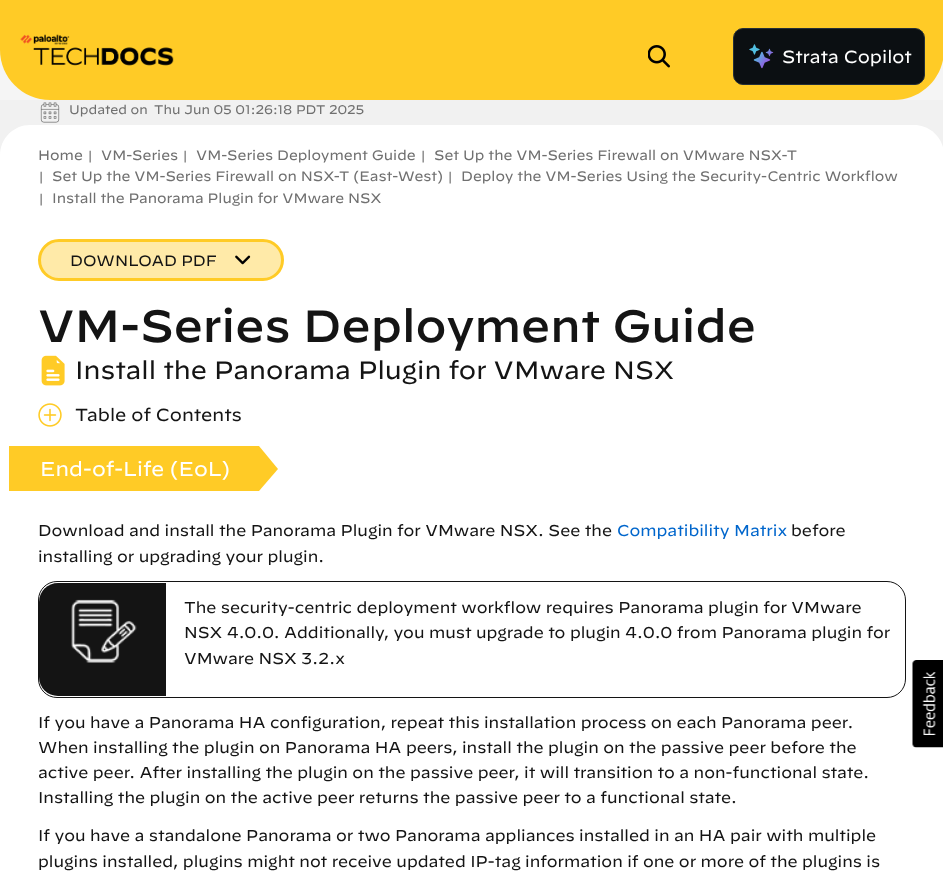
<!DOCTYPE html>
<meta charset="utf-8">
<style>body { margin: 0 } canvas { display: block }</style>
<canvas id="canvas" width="943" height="880"></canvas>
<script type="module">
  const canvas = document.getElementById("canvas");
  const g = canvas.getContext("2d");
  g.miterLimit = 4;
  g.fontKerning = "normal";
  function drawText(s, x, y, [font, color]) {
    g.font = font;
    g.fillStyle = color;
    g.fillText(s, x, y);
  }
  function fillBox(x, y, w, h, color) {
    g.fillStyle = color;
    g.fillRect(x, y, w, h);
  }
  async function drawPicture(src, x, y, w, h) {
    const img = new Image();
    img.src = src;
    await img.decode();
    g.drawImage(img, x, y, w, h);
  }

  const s1 = ["17.5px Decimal", "#FFFFFF"];
  const s2 = ["12.5px Decimal", "#707070"];
  const s3 = ["13.75px Decimal", "#707070"];
  const s4 = ["15px Decimal", "#141414"];
  const s5 = ["300 45px 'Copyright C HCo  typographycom'", "#141414"];
  const s6 = ["25px Decimal", "#141414"];
  const s7 = ["17.5px Decimal", "#141414"];
  const s8 = ["20px Decimal", "#FFFFFF"];
  const s9 = ["15.62px Decimal", "#141414"];
  const s10 = ["15.62px Decimal", "#0066CC"];

  fillBox(0, 0, 943, 880, "#F5F5F5");
  g.fillStyle = "#FFCB26";
  g.beginPath();
  g.moveTo(0, 0);
  g.lineTo(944, 0);
  g.lineTo(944, 50);
  g.bezierCurveTo(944, 77.5, 921.5, 100, 894, 100);
  g.lineTo(50, 100);
  g.bezierCurveTo(22.5, 100, 0, 77.5, 0, 50);
  g.closePath();
  g.fill();
  await drawPicture("pic1.png", 20, 34, 154, 32);
  await drawPicture("pic2.png", 648, 45, 22, 23);
  g.fillStyle = "#0B0F12";
  g.beginPath();
  g.roundRect(733.5, 28.5, 191, 56, 9.5);
  g.fill();
  g.strokeStyle = "#262F36";
  g.stroke();
  await drawPicture("pic3.png", 749, 44, 25, 25);
  drawText("Strata Copilot", 782, 63, s1);
  fillBox(0, 100, 943, 55, "#F1F1F1");
  await drawPicture("pic4.png", 40, 102, 20, 21);
  drawText("Updated on", 69, 114, s2);
  drawText("Thu Jun 05 01:26:18 PDT 2025", 154, 114, s2);
  g.fillStyle = "#FFFFFF";
  g.beginPath();
  g.moveTo(30, 125);
  g.lineTo(914, 125);
  g.bezierCurveTo(930.5, 125, 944, 138.5, 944, 155);
  g.lineTo(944, 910);
  g.lineTo(0, 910);
  g.lineTo(0, 155);
  g.bezierCurveTo(0, 138.5, 13.5, 125, 30, 125);
  g.closePath();
  g.fill();
  drawText("Home", 38, 160, s3);
  drawText("|", 87, 160, s2);
  drawText("VM-Series", 101, 160, s3);
  drawText("|", 182, 160, s2);
  drawText("VM-Series Deployment Guide", 196, 160, s3);
  drawText("|", 420, 160, s2);
  drawText("Set Up the VM-Series Firewall on VMware NSX-T", 434, 160, s3);
  drawText("|", 38, 181, s2);
  drawText("Set Up the VM-Series Firewall on NSX-T (East-West)", 52, 181, s3);
  drawText("|", 447, 181, s2);
  drawText("Deploy the VM-Series Using the Security-Centric Workflow", 461, 181, s3);
  drawText("|", 38, 203, s2);
  drawText("Install the Panorama Plugin for VMware NSX", 52, 203, s3);
  g.fillStyle = "#FFEAA8";
  g.beginPath();
  g.roundRect(39.5, 240.5, 243, 39, 19.5);
  g.fill();
  g.strokeStyle = "#FFCB26";
  g.lineWidth = 3;
  g.stroke();
  drawText("DOWNLOAD PDF", 70, 266, s4);
  await drawPicture("pic5.png", 235, 255, 16, 10);
  drawText("VM-Series Deployment Guide", 38, 342, s5);
  await drawPicture("pic6.png", 41, 355, 24, 31);
  drawText("Install the Panorama Plugin for VMware NSX", 75, 379, s6);
  await drawPicture("pic7.png", 38, 403, 24, 24);
  drawText("Table of Contents", 75, 421, s7);
  fillBox(9, 446, 250, 45, "#FFCB26");
  drawText("End-of-Life (EoL)", 40, 476, s8);
  g.fillStyle = "#FFCB26";
  g.beginPath();
  g.moveTo(259, 491);
  g.lineTo(259, 446);
  g.lineTo(278, 469);
  g.closePath();
  g.fill();
  drawText("Download and install the Panorama Plugin for VMware NSX. See the", 38, 536, s9);
  drawText("Compatibility Matrix", 617, 536, s10);
  drawText("before", 791, 536, s9);
  drawText("installing or upgrading your plugin.", 38, 562, s9);
  g.beginPath();
  g.roundRect(38.5, 581.5, 867, 116, 18.5);
  g.strokeStyle = "#141414";
  g.lineWidth = 1;
  g.stroke();
  g.beginPath();
  g.roundRect(39, 583, 127, 113, [19, 0, 0, 19]);
  g.fill();
  await drawPicture("pic8.png", 71, 599, 66, 64);
  drawText("The security-centric deployment workflow requires Panorama plugin for VMware", 184, 613, s9);
  drawText("NSX 4.0.0. Additionally, you must upgrade to plugin 4.0.0 from Panorama plugin for", 184, 638, s9);
  drawText("VMware NSX 3.2.x", 184, 664, s9);
  drawText("If you have a Panorama HA configuration, repeat this installation process on each Panorama peer.", 38, 728, s9);
  drawText("When installing the plugin on Panorama HA peers, install the plugin on the passive peer before the", 38, 753, s9);
  drawText("active peer. After installing the plugin on the passive peer, it will transition to a non-functional state.", 38, 778, s9);
  drawText("Installing the plugin on the active peer returns the passive peer to a functional state.", 38, 803, s9);
  drawText("If you have a standalone Panorama or two Panorama appliances installed in an HA pair with multiple", 38, 841, s9);
  drawText("plugins installed, plugins might not receive updated IP-tag information if one or more of the plugins is", 38, 867, s9);
  await drawPicture("pic9.png", 912, 660, 31, 88);
</script>
